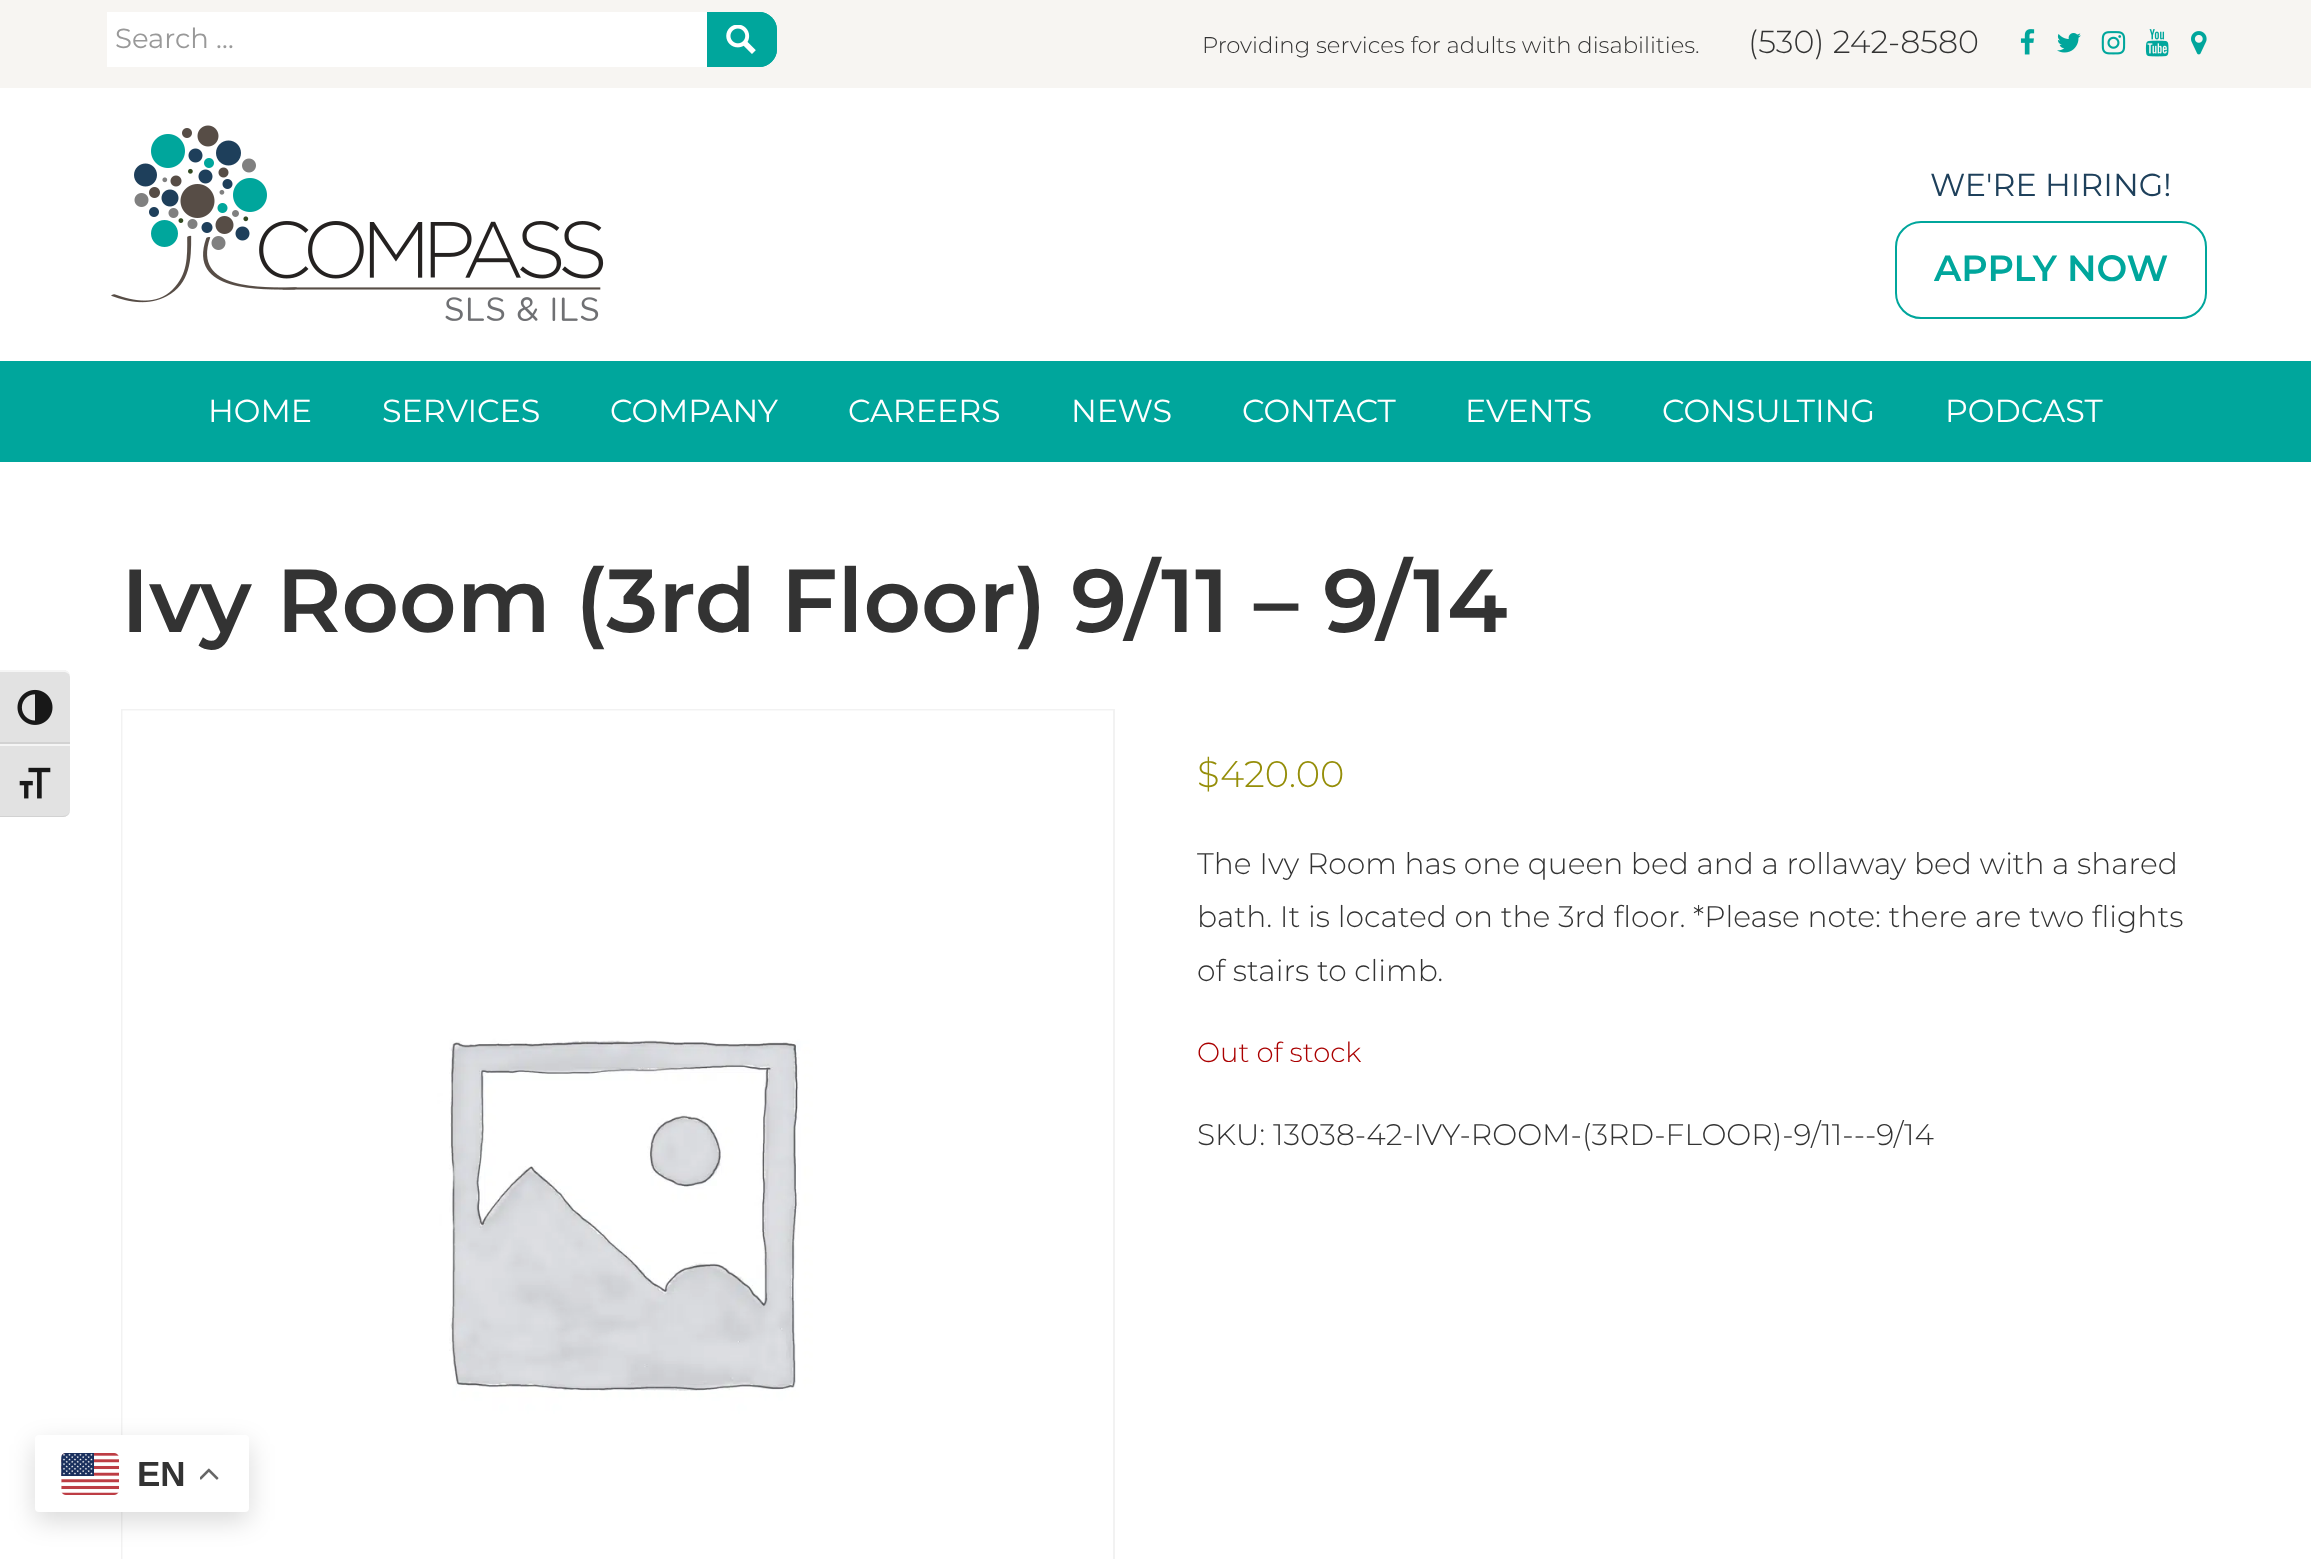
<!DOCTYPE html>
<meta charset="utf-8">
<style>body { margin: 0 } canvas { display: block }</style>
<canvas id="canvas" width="2311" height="1559"></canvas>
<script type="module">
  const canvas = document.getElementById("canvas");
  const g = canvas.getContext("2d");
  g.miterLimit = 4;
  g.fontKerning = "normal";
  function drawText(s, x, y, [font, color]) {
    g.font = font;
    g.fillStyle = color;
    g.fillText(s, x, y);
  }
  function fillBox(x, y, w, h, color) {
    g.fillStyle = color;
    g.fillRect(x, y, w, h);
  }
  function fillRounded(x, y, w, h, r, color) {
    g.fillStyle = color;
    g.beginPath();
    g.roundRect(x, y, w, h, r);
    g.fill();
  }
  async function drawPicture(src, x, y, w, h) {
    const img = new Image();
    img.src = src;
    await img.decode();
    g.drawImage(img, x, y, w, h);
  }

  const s1 = ["27.5px Montserrat", "#999999"];
  const s2 = ["300 22.75px Montserrat", "#333333"];
  const s3 = ["300 31.75px Montserrat", "#333333"];
  const s4 = ["31.75px Montserrat", "#1E405B"];
  const s5 = ["600 36.5px Montserrat", "#00A69C"];
  const s6 = ["31.75px Montserrat", "#FFFFFF"];
  const s7 = ["600 89.25px Montserrat", "#333333"];
  const s8 = ["300 37px Montserrat", "#958E09"];
  const s9 = ["300 29.75px Montserrat", "#333333"];
  const s10 = ["300 27.5px Montserrat", "#AA0000"];
  const s11 = ["bold 35px Liberation Sans", "#333333"];

  fillBox(0, 0, 2311, 1559, "#FFFFFF");
  fillBox(0, 0, 2311, 88, "#F7F5F2");
  fillBox(107, 12, 600, 55, "#FFFFFF");
  drawText("Search …", 115, 48, s1);
  g.fillStyle = "#00A69C";
  g.beginPath();
  g.roundRect(707, 12, 70, 55, [0, 18, 18, 0]);
  g.fill();
  await drawPicture("pic1.png", 726, 25, 30, 29);
  g.beginPath();
  g.roundRect(708, 13, 68, 53, [0, 17, 17, 0]);
  g.strokeStyle = "#00A69C";
  g.lineWidth = 2;
  g.stroke();
  drawText("Providing services for adults with disabilities.", 1202, 53, s2);
  drawText("(530) 242-8580", 1748, 53, s3);
  await drawPicture("pic2.png", 2020, 29, 15, 26);
  await drawPicture("pic3.png", 2057, 33, 24, 20);
  await drawPicture("pic4.png", 2101, 31, 25, 24);
  await drawPicture("pic5.png", 2145, 29, 24, 28);
  await drawPicture("pic6.png", 2191, 31, 16, 24);
  await drawPicture("pic7.png", 111, 125, 493, 196);
  drawText("WE'RE HIRING!", 1930, 196, s4);
  g.beginPath();
  g.roundRect(1896, 222, 310, 96, 25);
  g.stroke();
  drawText("APPLY NOW", 1934, 281, s5);
  fillBox(0, 361, 2311, 101, "#00A69C");
  drawText("HOME", 208, 422, s6);
  drawText("SERVICES", 382, 422, s6);
  drawText("COMPANY", 610, 422, s6);
  drawText("CAREERS", 848, 422, s6);
  drawText("NEWS", 1071, 422, s6);
  drawText("CONTACT", 1242, 422, s6);
  drawText("EVENTS", 1465, 422, s6);
  drawText("CONSULTING", 1662, 422, s6);
  drawText("PODCAST", 1945, 422, s6);
  g.fillStyle = "#E2E2E2";
  g.beginPath();
  g.roundRect(0, 670, 70, 74, [0, 7, 0, 0]);
  g.fill();
  g.fillStyle = "#F5F5F5";
  g.beginPath();
  g.moveTo(0, 672);
  g.lineTo(63, 672);
  g.bezierCurveTo(67, 672, 70, 674, 70, 677);
  g.bezierCurveTo(70, 674, 68, 671, 65, 670);
  g.lineTo(0, 670);
  g.closePath();
  g.fill();
  fillBox(0, 742, 70, 2, "#D2D2D2");
  await drawPicture("pic8.png", 17, 689, 36, 36);
  g.fillStyle = "#E2E2E2";
  g.beginPath();
  g.roundRect(0, 744, 70, 73, [0, 0, 7, 0]);
  g.fill();
  fillBox(0, 744, 70, 2, "#F5F5F5");
  g.fillStyle = "#D2D2D2";
  g.beginPath();
  g.moveTo(0, 816);
  g.lineTo(0, 817);
  g.lineTo(63, 817);
  g.bezierCurveTo(67, 817, 70, 814, 70, 810);
  g.bezierCurveTo(70, 813, 67, 816, 63, 816);
  g.closePath();
  g.fill();
  await drawPicture("pic9.png", 19, 767, 32, 32);
  drawText("Ivy Room (3rd Floor) 9/11 – 9/14", 121, 632, s7);
  g.strokeStyle = "#F2F2F2";
  g.strokeRect(122, 710, 992, 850);
  await drawPicture("pic10.png", 122, 710, 991, 849);
  drawText("$", 1197, 787, s8);
  drawText("420.00", 1220, 787, s8);
  drawText("The Ivy Room has one queen bed and a rollaway bed with a shared", 1197, 874, s9);
  drawText("bath. It is located on the 3rd floor. *Please note: there are two flights", 1197, 927, s9);
  drawText("of stairs to climb.", 1197, 981, s9);
  drawText("Out of stock", 1197, 1062, s10);
  drawText("SKU: 13038-42-IVY-ROOM-(3RD-FLOOR)-9/11---9/14", 1197, 1145, s9);
  g.fillStyle = "rgba(0, 0, 0, 0.15)";
  g.filter = "blur(13px)";
  g.beginPath();
  g.roundRect(35, 1444, 214, 77, 4);
  g.fill();
  g.filter = "none";
  fillRounded(35, 1435, 214, 77, 4, "#FFFFFF");
  await drawPicture("pic11.png", 61, 1453, 58, 42);
  drawText("EN", 137, 1486, s11);
  await drawPicture("pic12.png", 200, 1468, 19, 12);
</script>
